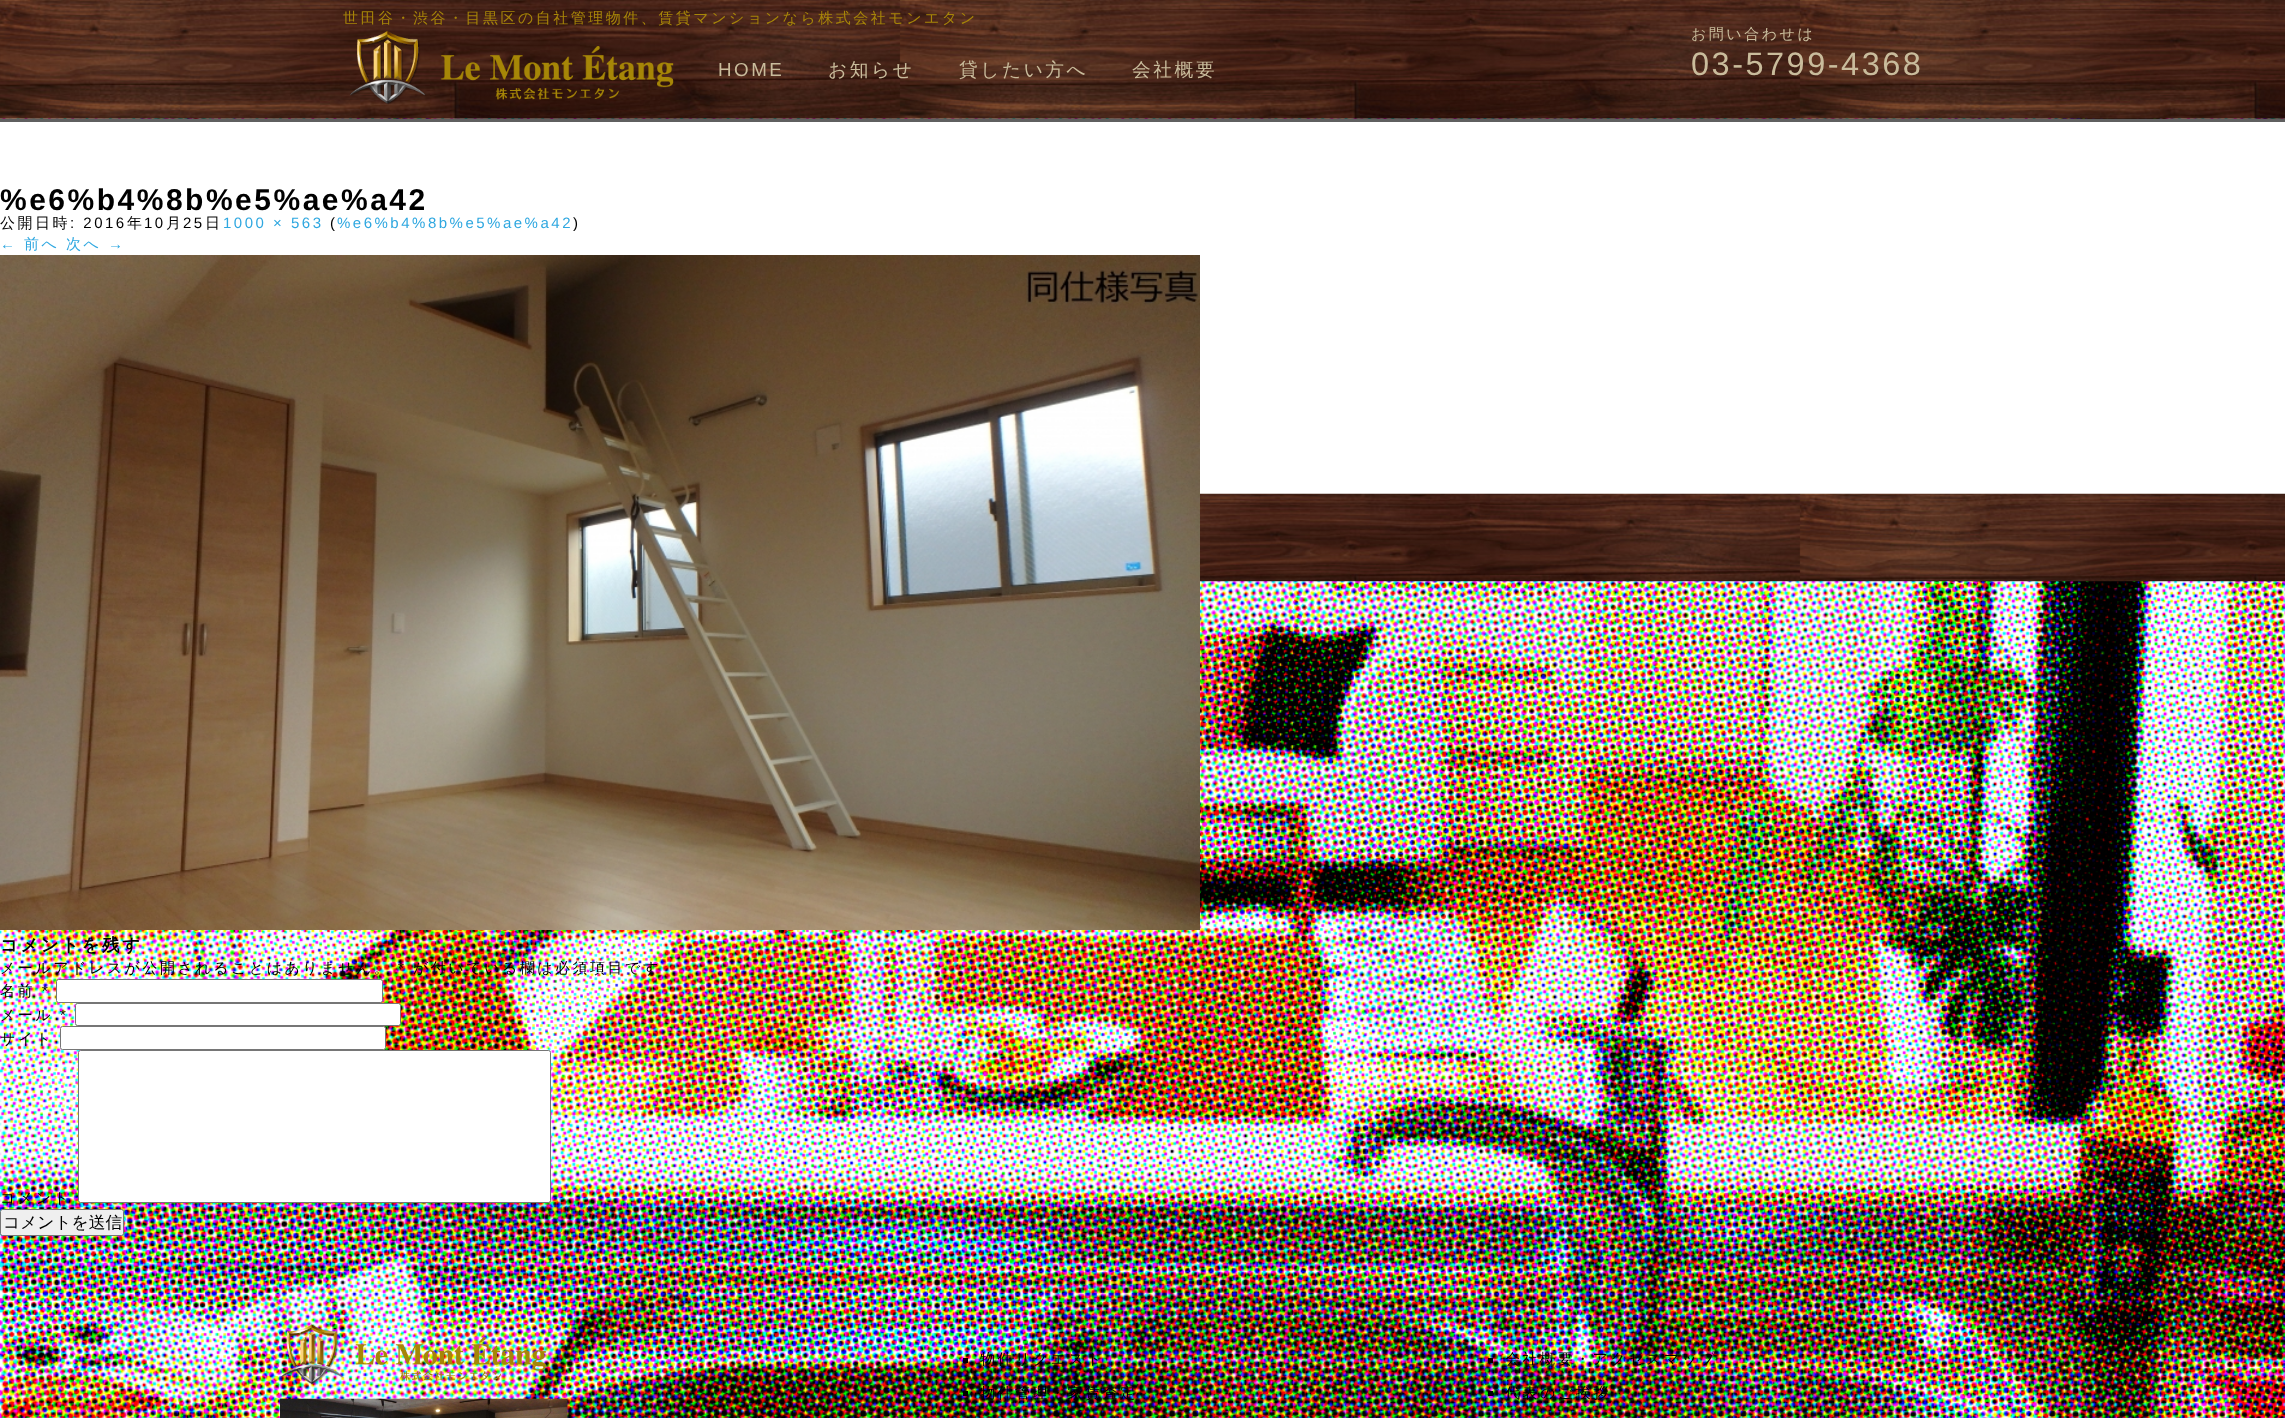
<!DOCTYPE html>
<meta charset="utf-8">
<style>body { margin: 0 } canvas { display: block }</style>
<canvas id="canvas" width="2285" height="1418"></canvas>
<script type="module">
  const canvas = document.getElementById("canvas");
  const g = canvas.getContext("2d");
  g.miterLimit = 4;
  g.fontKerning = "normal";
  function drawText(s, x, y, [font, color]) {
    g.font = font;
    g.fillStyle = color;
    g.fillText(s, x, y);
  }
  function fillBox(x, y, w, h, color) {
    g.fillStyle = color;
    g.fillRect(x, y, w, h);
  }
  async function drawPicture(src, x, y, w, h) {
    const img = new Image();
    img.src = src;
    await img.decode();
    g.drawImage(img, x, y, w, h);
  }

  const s1 = ["500 15px WenQuanYi Zen Hei", "#A78608"];
  const s2 = ["18.75px Liberation Sans", "#C9BC9C"];
  const s3 = ["500 18.75px WenQuanYi Zen Hei", "#C9BC9C"];
  const s4 = ["500 15px WenQuanYi Zen Hei", "#C9BC9C"];
  const s5 = ["32.5px Liberation Sans", "#C9BC9C"];
  const s6 = ["bold 30px Liberation Sans", "#000000"];
  const s7 = ["500 15px WenQuanYi Zen Hei", "#000000"];
  const s8 = ["15px Liberation Sans", "#000000"];
  const s9 = ["15px Liberation Sans", "#2EA7E0"];
  const s10 = ["500 15px WenQuanYi Zen Hei", "#2EA7E0"];
  const s11 = ["bold 17.5px WenQuanYi Zen Hei", "#000000"];
  const s12 = ["500 16.75px WenQuanYi Zen Hei", "#000000"];

  fillBox(0, 0, 2285, 1418, "#FFFFFF");
  await drawPicture("pic1.png", 0, 118, 2285, 1300);
  await drawPicture("pic2.png", 0, 0, 2285, 119);
  g.letterSpacing = "2.5px";
  drawText("世田谷・渋谷・目黒区の自社管理物件、賃貸マンションなら株式会社モンエタン", 343, 23, s1);
  await drawPicture("pic3.png", 350, 30, 324, 75);
  drawText("HOME", 718, 76, s2);
  drawText("お知らせ", 828, 76, s3);
  drawText("貸したい方へ", 959, 76, s3);
  drawText("会社概要", 1132, 76, s3);
  drawText("お問い合わせは", 1691, 39, s4);
  drawText("03-5799-4368", 1691, 75, s5);
  fillBox(0, 122, 2285, 372, "#FFFFFF");
  drawText("%e6%b4%8b%e5%ae%a42", 0, 210, s6);
  drawText("公開日時", 0, 228, s7);
  drawText(": 2016", 70, 228, s8);
  drawText("年", 127, 228, s7);
  drawText("10", 144, 228, s8);
  drawText("月", 166, 228, s7);
  drawText("25", 183, 228, s8);
  drawText("日", 205, 228, s7);
  drawText("1000 × 563", 223, 228, s9);
  drawText("(", 330, 228, s8);
  drawText("%e6%b4%8b%e5%ae%a42", 337, 228, s9);
  drawText(")", 573, 228, s8);
  drawText("←", 0, 249, s9);
  drawText("前へ", 24, 249, s10);
  drawText("次へ", 66, 249, s10);
  drawText("→", 108, 249, s9);
  await drawPicture("pic4.png", 0, 255, 1200, 675);
  drawText("コメントを残す", 0, 951, s11);
  drawText("メールアドレスが公開されることはありません。", 0, 973, s7);
  drawText("*", 398, 973, s8);
  drawText("が付いている欄は必須項目です", 413, 973, s7);
  drawText("名前", 0, 996, s7);
  drawText("*", 42, 996, s8);
  g.fillStyle = "#FFFFFF";
  g.beginPath();
  g.roundRect(56.5, 979.5, 326, 23, 2);
  g.fill();
  g.strokeStyle = "#767676";
  g.stroke();
  drawText("メール", 0, 1020, s7);
  drawText("*", 60, 1020, s8);
  g.fillStyle = "#FFFFFF";
  g.beginPath();
  g.roundRect(75.5, 1003.5, 325, 22, 2);
  g.fill();
  g.stroke();
  drawText("サイト", 0, 1044, s7);
  g.fillStyle = "#FFFFFF";
  g.beginPath();
  g.roundRect(60.5, 1026.5, 325, 23, 2);
  g.fill();
  g.stroke();
  drawText("コメント", 0, 1203, s7);
  g.fillStyle = "#FFFFFF";
  g.beginPath();
  g.roundRect(78.5, 1050.5, 472, 152, 2);
  g.fill();
  g.stroke();
  g.fillStyle = "#EFEFEF";
  g.beginPath();
  g.roundRect(0.5, 1209.5, 123, 26, 2);
  g.fill();
  g.stroke();
  g.letterSpacing = "0px";
  drawText("コメントを送信", 3, 1228, s12);
  await drawPicture("pic5.png", 1200, 493, 1085, 89);
  fillBox(0, 119, 2285, 3, "#5F5F5F");
  await drawPicture("pic6.png", 280, 1324, 267, 61);
  await drawPicture("pic7.png", 280, 1398, 288, 20);
  fillBox(963, 1358, 5, 5, "#000000");
  g.letterSpacing = "2.5px";
  drawText("物件リクエスト", 980, 1364, s7);
  fillBox(963, 1391, 5, 5, "#000000");
  drawText("物件管理・家賃査定", 980, 1398, s7);
  fillBox(1488, 1358, 5, 5, "#000000");
  drawText("会社概要・アクセスマップ", 1505, 1364, s7);
  fillBox(1488, 1391, 5, 5, "#000000");
  drawText("代表のご挨拶", 1505, 1398, s7);
</script>
